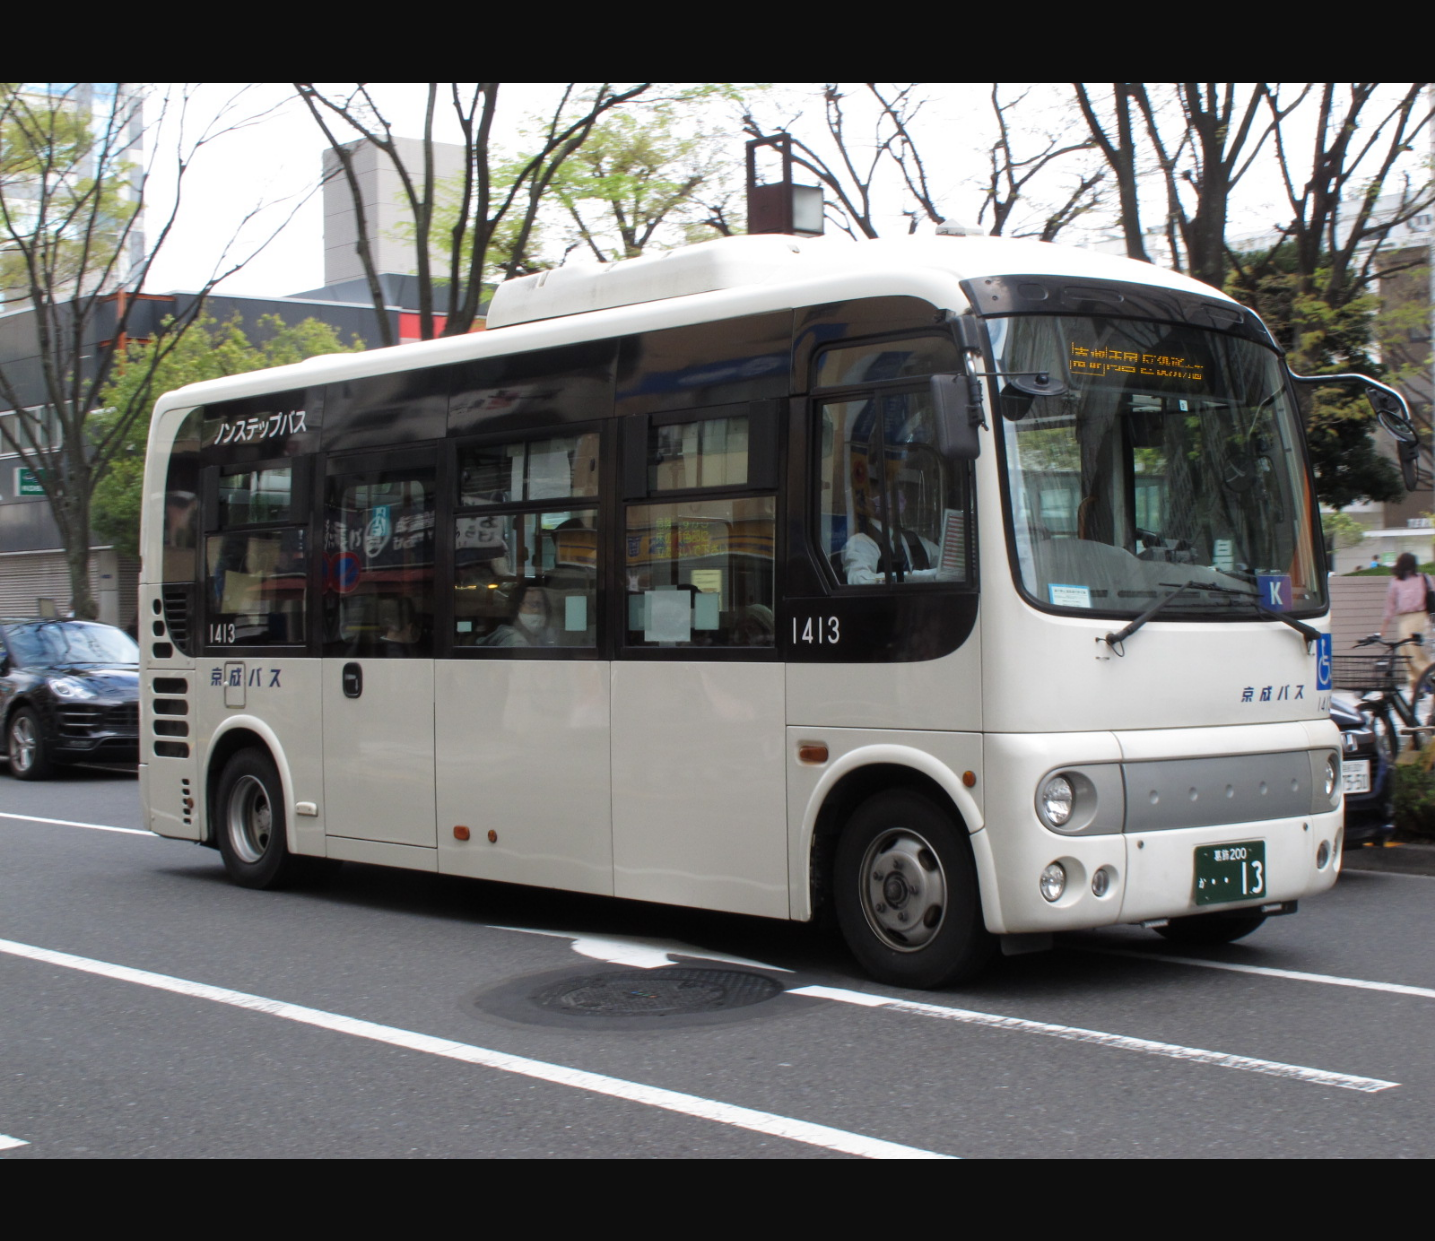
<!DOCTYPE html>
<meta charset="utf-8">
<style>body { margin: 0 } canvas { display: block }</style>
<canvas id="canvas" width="1435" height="1241"></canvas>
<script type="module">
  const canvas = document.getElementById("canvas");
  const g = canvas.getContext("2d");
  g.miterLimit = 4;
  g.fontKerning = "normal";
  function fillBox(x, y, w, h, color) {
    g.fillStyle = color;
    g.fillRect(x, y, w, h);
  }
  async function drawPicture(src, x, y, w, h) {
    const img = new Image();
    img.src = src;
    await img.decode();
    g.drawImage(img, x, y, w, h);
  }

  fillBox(0, 0, 1435, 1241, "#0E0E0E");
  await drawPicture("pic1.png", 0, 83, 1435, 1076);
</script>
